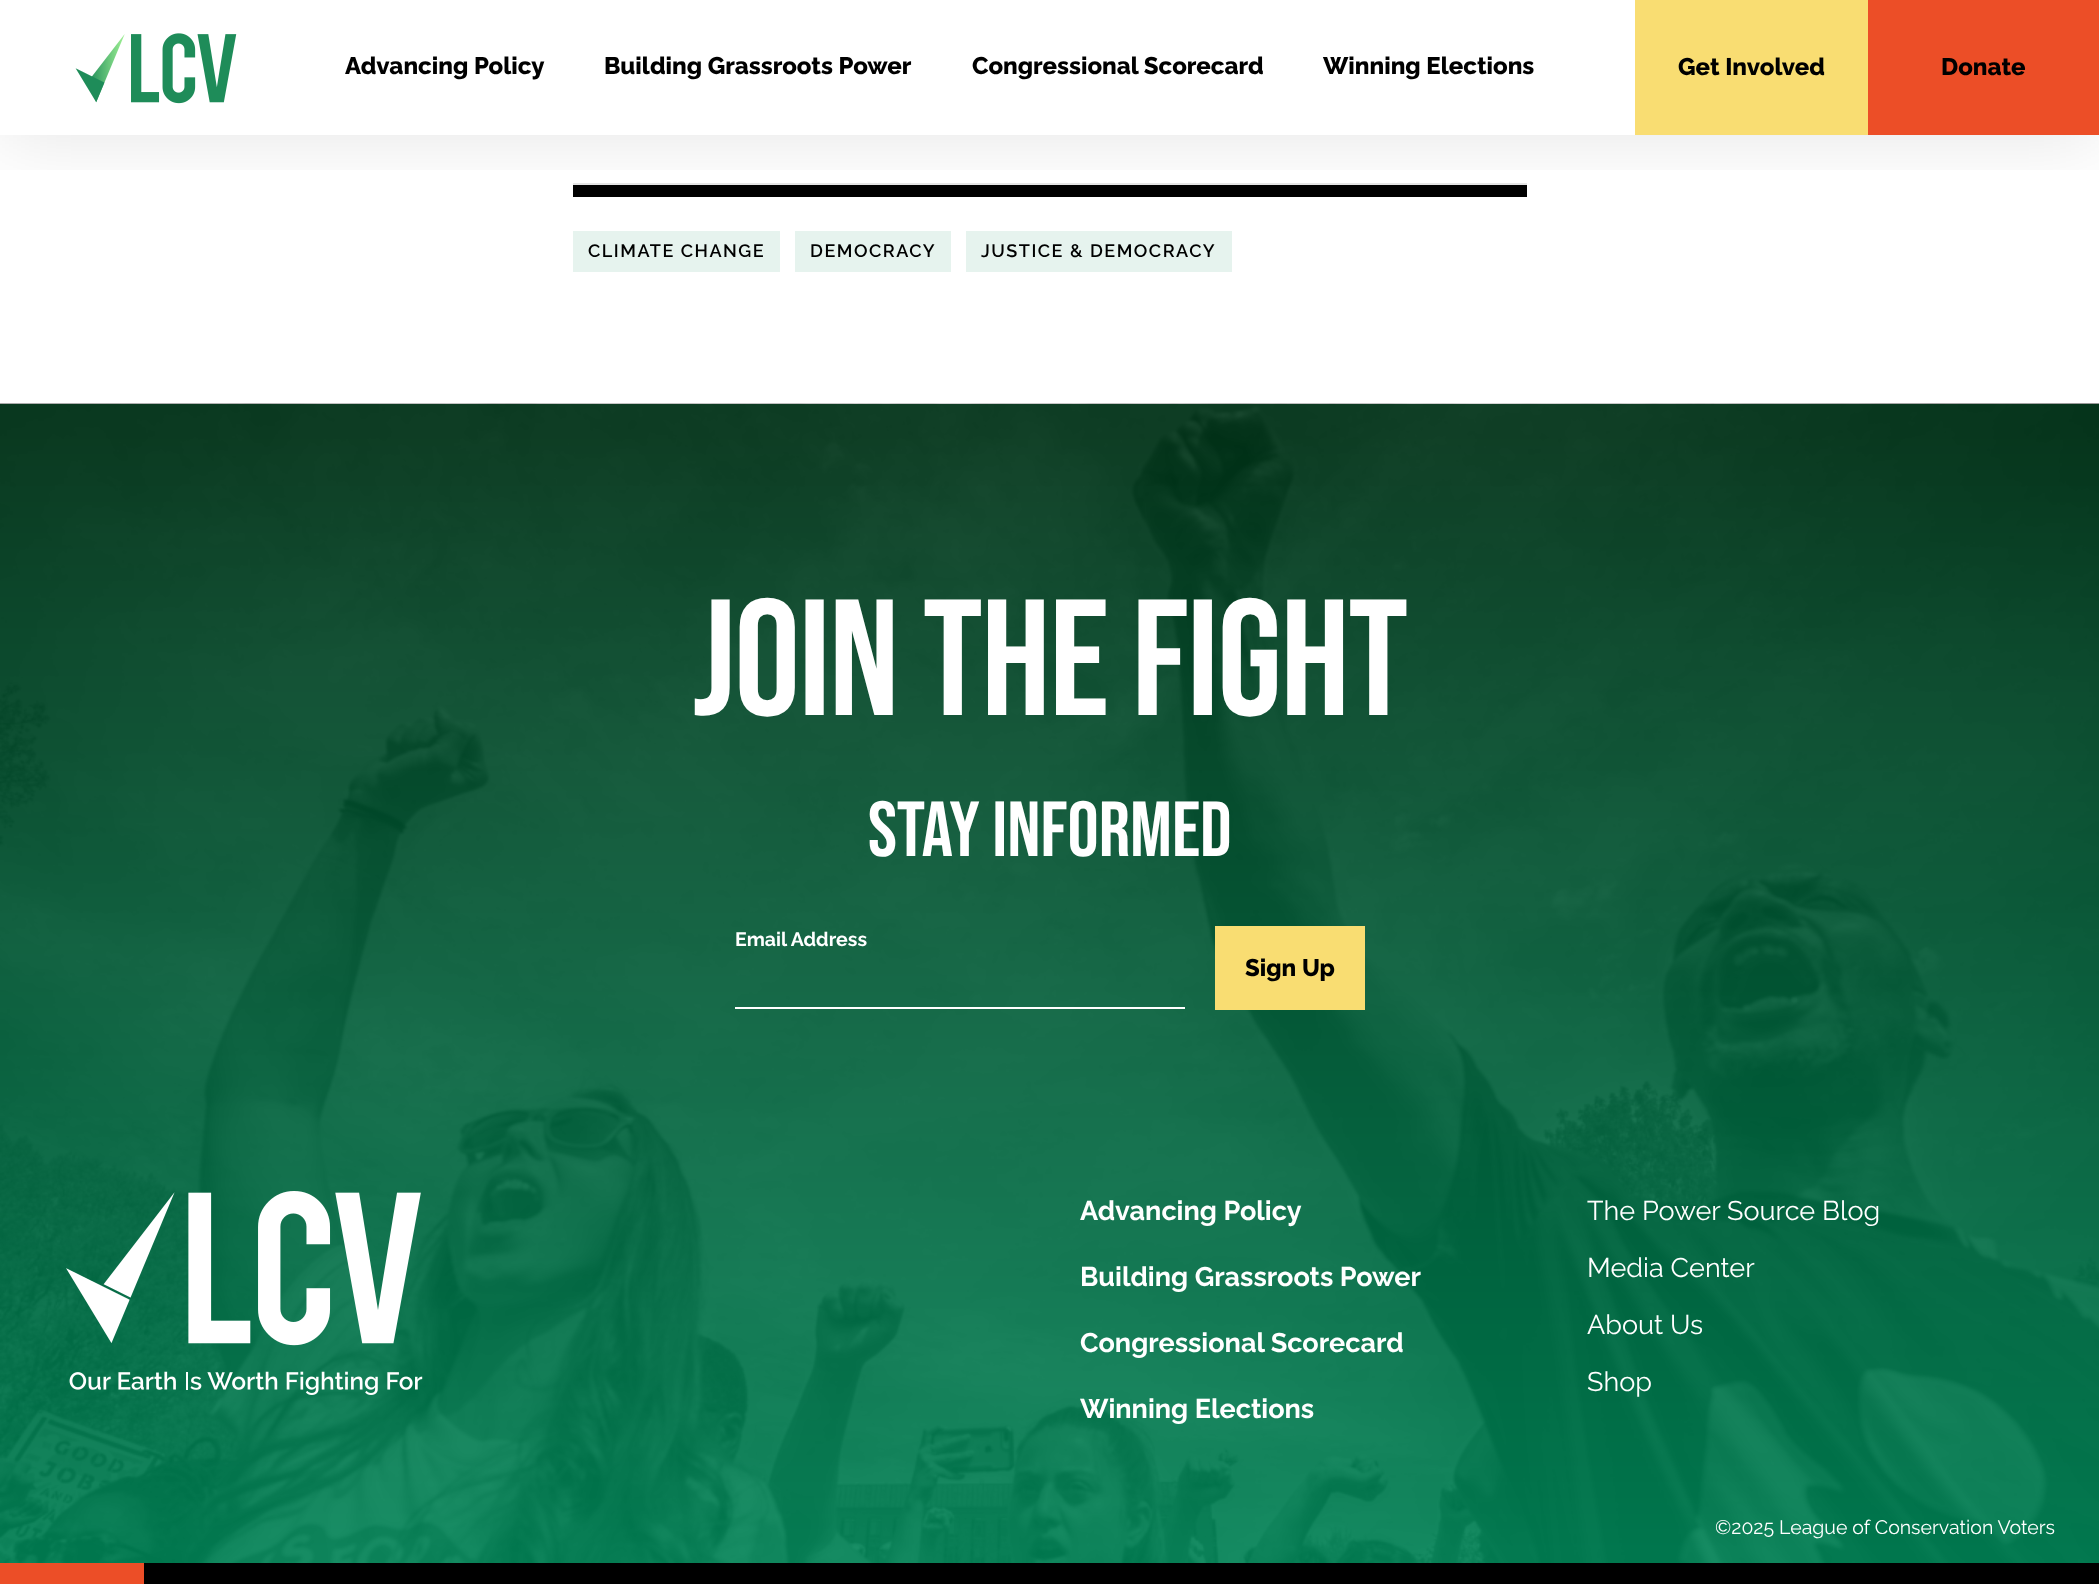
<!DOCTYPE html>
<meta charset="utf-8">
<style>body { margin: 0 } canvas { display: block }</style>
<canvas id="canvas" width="2099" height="1584"></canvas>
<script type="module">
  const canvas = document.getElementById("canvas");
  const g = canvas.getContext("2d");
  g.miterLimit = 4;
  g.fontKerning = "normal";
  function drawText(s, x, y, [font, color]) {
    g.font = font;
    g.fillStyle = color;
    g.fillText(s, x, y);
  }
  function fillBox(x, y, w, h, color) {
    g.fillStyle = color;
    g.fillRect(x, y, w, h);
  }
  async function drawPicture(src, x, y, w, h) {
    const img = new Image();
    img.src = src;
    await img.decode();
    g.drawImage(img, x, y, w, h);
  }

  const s1 = ["800 24px Raleway", "#000000"];
  const s2 = ["600 18px Raleway", "#000000"];
  const s3 = ["bold 165px Bebas Neue", "#FFFFFF"];
  const s4 = ["bold 78px Bebas Neue", "#FFFFFF"];
  const s5 = ["bold 19.5px Raleway", "#FFFFFF"];
  const s6 = ["bold 27px Raleway", "#FFFFFF"];
  const s7 = ["27px Raleway", "#FFFFFF"];
  const s8 = ["19.5px Raleway", "#FFFFFF"];

  fillBox(0, 0, 2099, 1584, "#FFFFFF");
  fillBox(573, 185, 954, 12, "#000000");
  fillBox(573, 183, 954, 2, "#E5E5E5");
  fillBox(573, 231, 207, 41, "#E6F3EE");
  fillBox(795, 231, 156, 41, "#E6F3EE");
  fillBox(966, 231, 266, 41, "#E6F3EE");
  g.save();
  g.beginPath();
  g.rect(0, 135, 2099, 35);
  g.clip();
  g.fillStyle = "rgba(0, 0, 0, 0.1)";
  g.filter = "blur(37.5px)";
  g.beginPath();
  g.rect(0, 3, 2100, 135);
  g.fill();
  g.filter = "none";
  g.restore();
  await drawPicture("pic1.png", 75, 33, 162, 71);
  drawText("Advancing Policy", 345, 74, s1);
  drawText("Building Grassroots Power", 604, 74, s1);
  drawText("Congressional Scorecard", 972, 74, s1);
  drawText("Winning Elections", 1323, 74, s1);
  fillBox(1635, 0, 233, 135, "#F9DD72");
  drawText("Get Involved", 1678, 75, s1);
  fillBox(1868, 0, 231, 135, "#EC4E27");
  drawText("Donate", 1941, 75, s1);
  g.letterSpacing = "1.5px";
  drawText("CLIMATE CHANGE", 588, 257, s2);
  drawText("DEMOCRACY", 810, 257, s2);
  drawText("JUSTICE & DEMOCRACY", 981, 257, s2);
  await drawPicture("pic2.png", 0, 403, 2099, 1160);
  g.letterSpacing = "-1.5px";
  drawText("JOIN THE FIGHT", 693, 715, s3);
  g.letterSpacing = "0px";
  drawText("STAY INFORMED", 868, 856, s4);
  fillBox(735, 1007, 450, 2, "#FFFFFF");
  drawText("Email Address", 735, 946, s5);
  fillBox(1215, 926, 150, 84, "#F9DD72");
  drawText("Sign Up", 1245, 976, s1);
  await drawPicture("pic3.png", 66, 1191, 357, 204);
  drawText("Advancing Policy", 1080, 1220, s6);
  drawText("Building Grassroots Power", 1080, 1286, s6);
  drawText("Congressional Scorecard", 1080, 1352, s6);
  drawText("Winning Elections", 1080, 1418, s6);
  drawText("The Power Source Blog", 1587, 1220, s7);
  drawText("Media Center", 1587, 1277, s7);
  drawText("About Us", 1587, 1334, s7);
  drawText("Shop", 1587, 1391, s7);
  drawText("©2025 League of Conservation Voters", 1715, 1534, s8);
  fillBox(144, 1563, 1955, 21, "#000000");
  fillBox(0, 1563, 144, 21, "#EC4E27");
</script>
